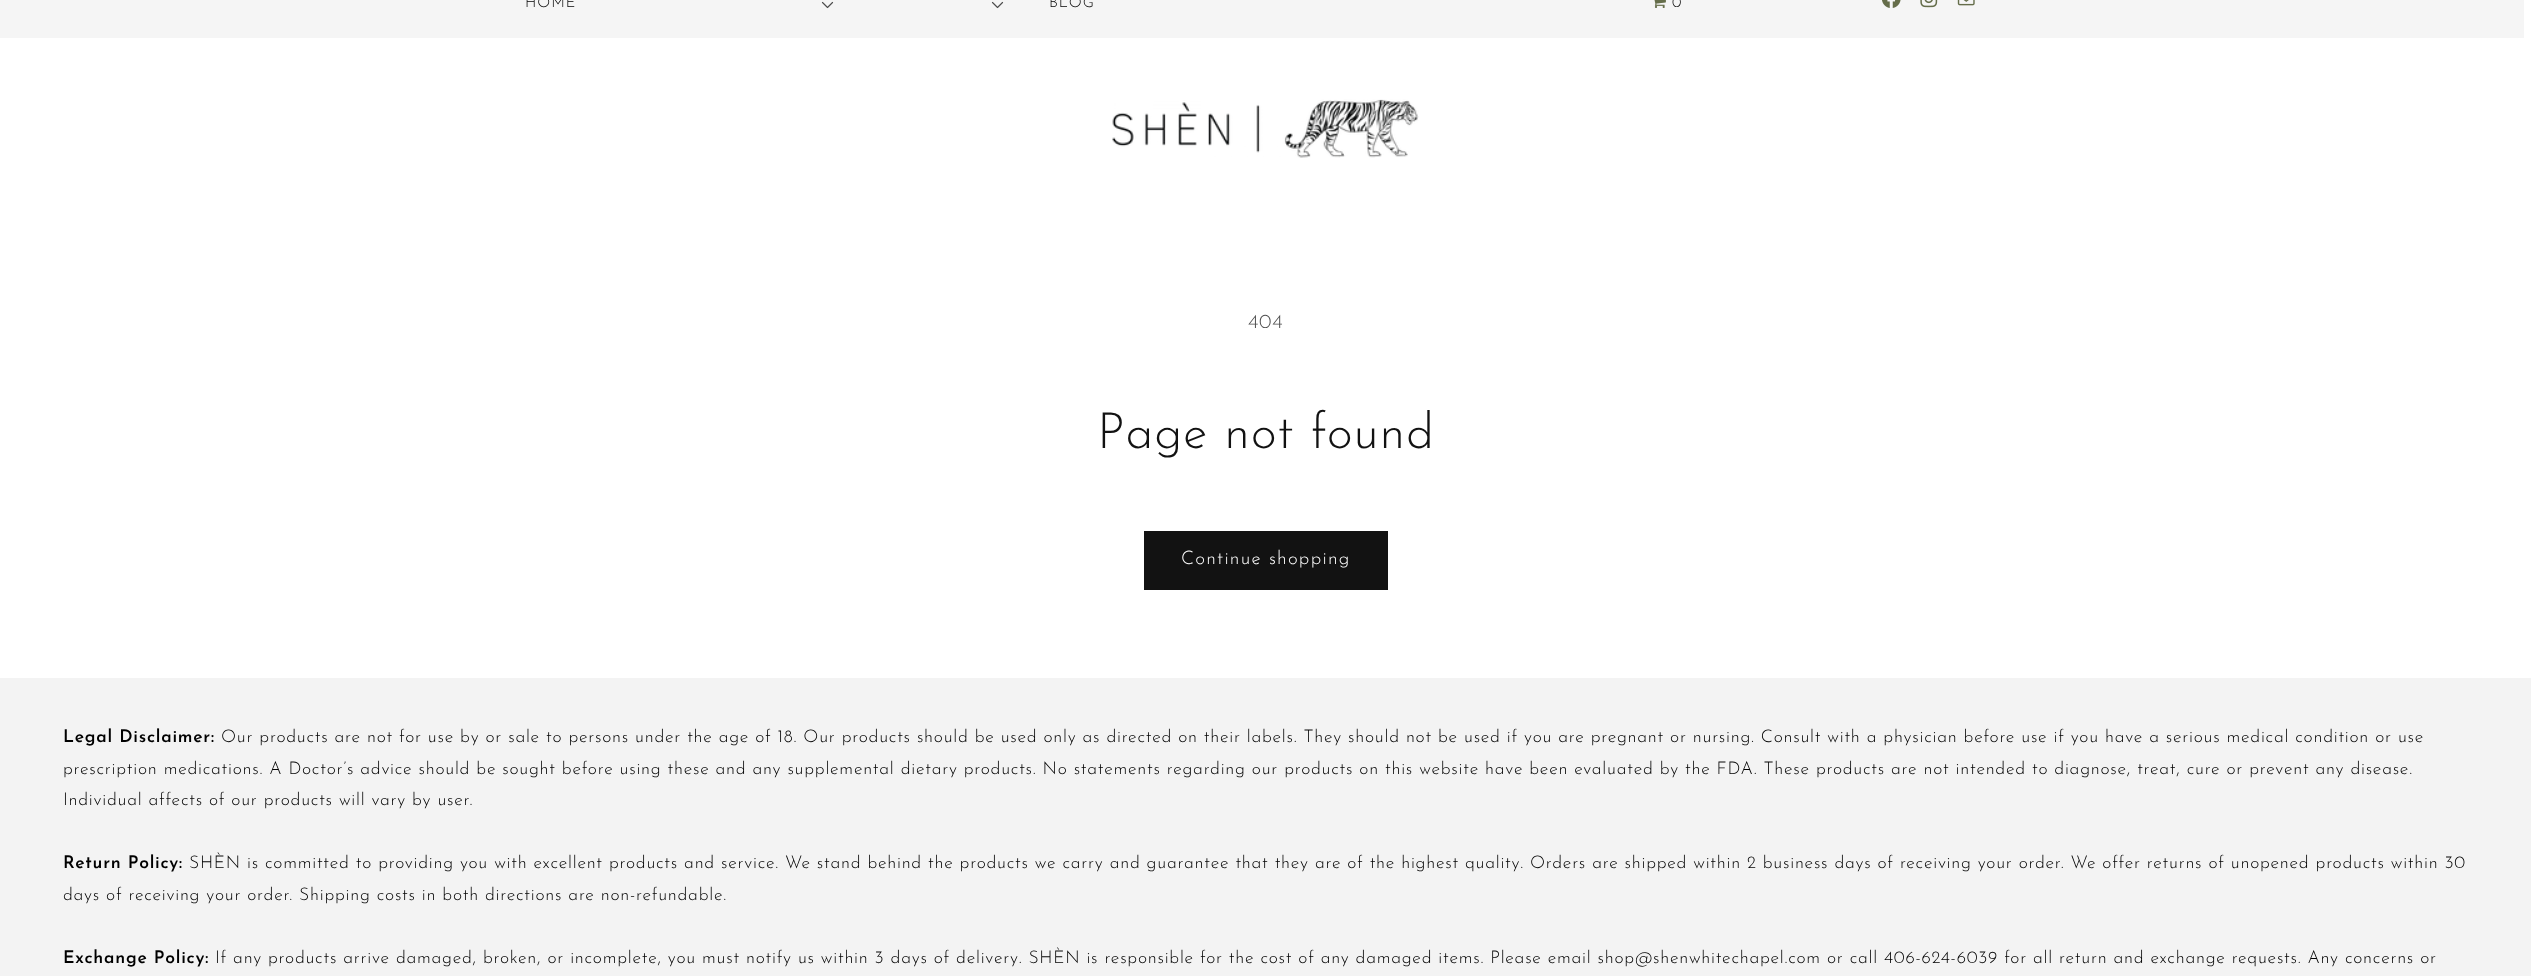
<!DOCTYPE html>
<meta charset="utf-8">
<style>body { margin: 0 } canvas { display: block }</style>
<canvas id="canvas" width="2531" height="976"></canvas>
<script type="module">
  const canvas = document.getElementById("canvas");
  const g = canvas.getContext("2d");
  g.miterLimit = 4;
  g.fontKerning = "normal";
  function drawText(s, x, y, [font, color]) {
    g.font = font;
    g.fillStyle = color;
    g.fillText(s, x, y);
  }
  function fillBox(x, y, w, h, color) {
    g.fillStyle = color;
    g.fillRect(x, y, w, h);
  }
  async function drawPicture(src, x, y, w, h) {
    const img = new Image();
    img.src = src;
    await img.decode();
    g.drawImage(img, x, y, w, h);
  }

  const s1 = ["300 15px Josefin Sans", "#000000"];
  const s2 = ["300 20px Josefin Sans", "#4D4D4D"];
  const s3 = ["300 50px Josefin Sans", "#121212"];
  const s4 = ["300 18.75px Josefin Sans", "#FFFFFF"];
  const s5 = ["600 17.5px Josefin Sans", "#000000"];
  const s6 = ["300 17.5px Josefin Sans", "#000000"];

  fillBox(0, 0, 2531, 976, "#FFFFFF");
  fillBox(0, 0, 2524, 38, "#F5F5F5");
  g.letterSpacing = "1px";
  drawText("HOME", 525, 7, s1);
  await drawPicture("pic1.png", 821, 1, 13, 8);
  await drawPicture("pic1.png", 991, 1, 13, 8);
  drawText("BLOG", 1049, 7, s1);
  await drawPicture("pic2.png", 1654, 0, 12, 8);
  drawText("0", 1672, 7, s1);
  await drawPicture("pic3.png", 1882, 0, 19, 8);
  await drawPicture("pic4.png", 1920, 0, 18, 8);
  await drawPicture("pic5.png", 1957, 0, 18, 6);
  await drawPicture("pic6.png", 1112, 99, 307, 59);
  g.letterSpacing = "0.75px";
  drawText("404", 1248, 328, s2);
  drawText("Page not found", 1097, 448, s3);
  fillBox(1144, 531, 244, 59, "#121212");
  g.letterSpacing = "1.25px";
  drawText("Continue shopping", 1181, 564, s4);
  fillBox(0, 678, 2531, 298, "#F3F3F3");
  g.letterSpacing = "0.75px";
  drawText("Legal Disclaimer:", 63, 742, s5);
  drawText("Our products are not for use by or sale to persons under the age of 18. Our products should be used only as directed on their labels. They should not be used if you are pregnant or nursing. Consult with a physician before use if you have a serious medical condition or use", 221, 742, s6);
  drawText("prescription medications. A Doctor’s advice should be sought before using these and any supplemental dietary products. No statements regarding our products on this website have been evaluated by the FDA. These products are not intended to diagnose, treat, cure or prevent any disease.", 63, 774, s6);
  drawText("Individual affects of our products will vary by user.", 63, 805, s6);
  drawText("Return Policy:", 63, 868, s5);
  drawText("SHÈN is committed to providing you with excellent products and service. We stand behind the products we carry and guarantee that they are of the highest quality. Orders are shipped within 2 business days of receiving your order. We offer returns of unopened products within 30", 189, 868, s6);
  drawText("days of receiving your order. Shipping costs in both directions are non-refundable.", 63, 900, s6);
  drawText("Exchange Policy:", 63, 963, s5);
  drawText("If any products arrive damaged, broken, or incomplete, you must notify us within 3 days of delivery. SHÈN is responsible for the cost of any damaged items. Please email shop@shenwhitechapel.com or call 406-624-6039 for all return and exchange requests. Any concerns or", 215, 963, s6);
</script>
